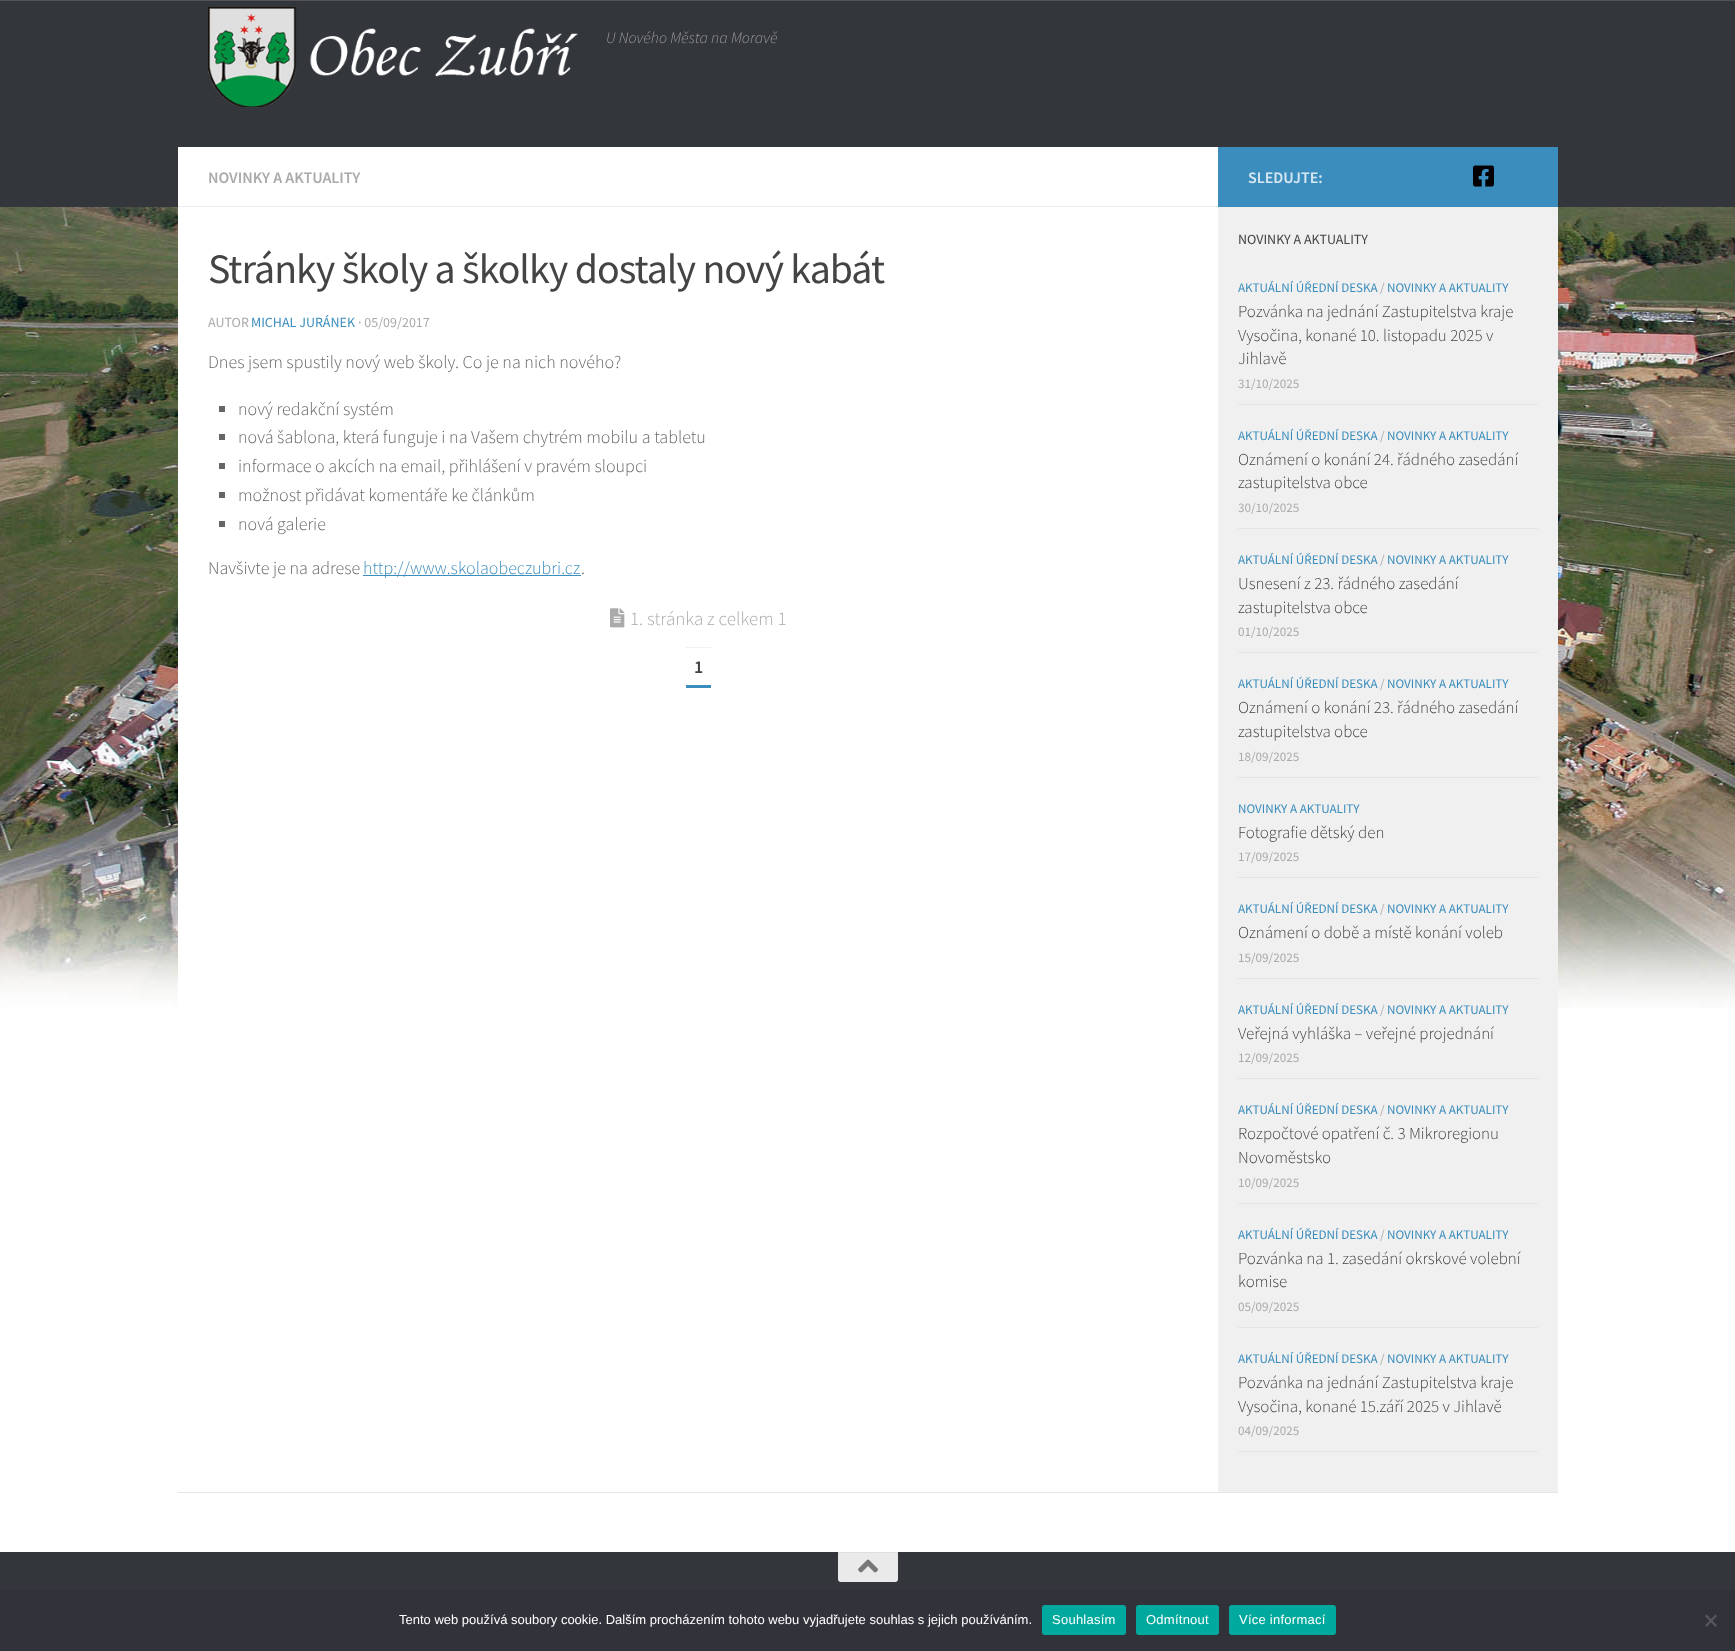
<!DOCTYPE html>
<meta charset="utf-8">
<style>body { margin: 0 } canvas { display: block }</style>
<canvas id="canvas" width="1735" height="1651"></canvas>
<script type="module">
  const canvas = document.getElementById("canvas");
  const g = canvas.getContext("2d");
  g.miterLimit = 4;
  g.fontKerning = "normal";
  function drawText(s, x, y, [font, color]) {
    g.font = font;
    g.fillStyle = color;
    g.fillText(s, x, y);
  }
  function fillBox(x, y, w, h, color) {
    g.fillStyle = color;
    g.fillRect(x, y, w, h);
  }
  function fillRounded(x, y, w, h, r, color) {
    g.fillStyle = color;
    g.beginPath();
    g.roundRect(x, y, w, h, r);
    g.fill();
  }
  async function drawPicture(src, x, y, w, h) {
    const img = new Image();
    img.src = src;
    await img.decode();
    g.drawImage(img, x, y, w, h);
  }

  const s1 = ["italic 300 16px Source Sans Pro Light", "#999B9D"];
  const s2 = ["600 16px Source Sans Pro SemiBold", "#AAAAAA"];
  const s3 = ["41.9px Source Sans Pro", "#444444"];
  const s4 = ["14px Source Sans Pro", "#AAAAAA"];
  const s5 = ["14px Source Sans Pro", "#3B8DBD"];
  const s6 = ["300 18px Source Sans Pro Light", "#666666"];
  const s7 = ["300 18px Source Sans Pro Light", "#3B8DBD"];
  const s8 = ["300 19px Source Sans Pro Light", "#AAAAAA"];
  const s9 = ["600 18px Source Sans Pro SemiBold", "#444444"];
  const s10 = ["600 16px Source Sans Pro SemiBold", "#D8E8F2"];
  const s11 = ["14px Source Sans Pro", "#444444"];
  const s12 = ["13.1px Source Sans Pro", "#3B8DBD"];
  const s13 = ["13.1px Source Sans Pro", "#AAAAAA"];
  const s14 = ["300 16.9px Source Sans Pro Light", "#444444"];
  const s15 = ["13px Liberation Sans", "#FFFFFF"];

  fillBox(0, 0, 1735, 1651, "#FFFFFF");
  await drawPicture("pic1.png", 0, 207, 1735, 801);
  g.fillStyle = "rgba(0, 0, 0, 0.1)";
  g.filter = "blur(0.5px)";
  g.beginPath();
  g.rect(178, 148, 1380, 1345);
  g.fill();
  g.filter = "none";
  fillBox(0, 1, 1735, 206, "#33363B");
  fillBox(0, 0, 1735, 1, "#525458");
  await drawPicture("pic2.png", 208, 7, 370, 100);
  drawText("U Nového Města na Moravě", 606, 43, s1);
  fillBox(178, 147, 1040, 1345, "#FFFFFF");
  fillBox(178, 206, 1040, 1, "#EEEEEE");
  drawText("NOVINKY A AKTUALITY", 208, 183, s2);
  g.letterSpacing = "-1px";
  drawText("Stránky školy a školky dostaly nový kabát", 208, 283, s3);
  g.letterSpacing = "0px";
  drawText("AUTOR", 208, 327, s4);
  drawText("MICHAL JURÁNEK", 251, 327, s5);
  drawText("· 05/09/2017", 358, 327, s4);
  drawText("Dnes jsem spustily nový web školy. Co je na nich nového?", 208, 368, s6);
  fillBox(219, 406, 6, 6, "#666666");
  drawText("nový redakční systém", 238, 415, s6);
  fillBox(219, 434, 6, 6, "#666666");
  drawText("nová šablona, která funguje i na Vašem chytrém mobilu a tabletu", 238, 443, s6);
  fillBox(219, 463, 6, 6, "#666666");
  drawText("informace o akcích na email, přihlášení v pravém sloupci", 238, 472, s6);
  fillBox(219, 492, 6, 6, "#666666");
  drawText("možnost přidávat komentáře ke článkům", 238, 501, s6);
  fillBox(219, 521, 6, 6, "#666666");
  drawText("nová galerie", 238, 530, s6);
  drawText("Navšivte je na adrese", 208, 574, s6);
  fillBox(363, 575, 218, 1, "#3B8DBD");
  drawText("http://www.skolaobeczubri.cz", 363, 574, s7);
  drawText(".", 581, 574, s6);
  await drawPicture("pic3.png", 610, 608, 15, 20);
  drawText("1. stránka z celkem 1", 630, 625, s8);
  drawText("1", 694, 673, s9);
  fillBox(686, 647, 25, 1, "#F1F1F1");
  fillBox(686, 685, 25, 3, "#3B8DBD");
  fillBox(1218, 147, 340, 60, "#3B8DBD");
  drawText("SLEDUJTE:", 1248, 183, s10);
  await drawPicture("pic4.png", 1473, 165, 21, 22);
  fillBox(1218, 207, 340, 1285, "#F0F0F0");
  drawText("NOVINKY A AKTUALITY", 1238, 244, s11);
  fillBox(1238, 404, 300, 1, "#E4E4E4");
  drawText("AKTUÁLNÍ ÚŘEDNÍ DESKA", 1238, 292, s12);
  drawText("/", 1380, 292, s13);
  drawText("NOVINKY A AKTUALITY", 1387, 292, s12);
  drawText("Pozvánka na jednání Zastupitelstva kraje", 1238, 317, s14);
  drawText("Vysočina, konané 10. listopadu 2025 v", 1238, 341, s14);
  drawText("Jihlavě", 1238, 364, s14);
  drawText("31/10/2025", 1238, 388, s13);
  fillBox(1238, 528, 300, 1, "#E4E4E4");
  drawText("AKTUÁLNÍ ÚŘEDNÍ DESKA", 1238, 440, s12);
  drawText("/", 1380, 440, s13);
  drawText("NOVINKY A AKTUALITY", 1387, 440, s12);
  drawText("Oznámení o konání 24. řádného zasedání", 1238, 465, s14);
  drawText("zastupitelstva obce", 1238, 488, s14);
  drawText("30/10/2025", 1238, 512, s13);
  fillBox(1238, 652, 300, 1, "#E4E4E4");
  drawText("AKTUÁLNÍ ÚŘEDNÍ DESKA", 1238, 564, s12);
  drawText("/", 1380, 564, s13);
  drawText("NOVINKY A AKTUALITY", 1387, 564, s12);
  drawText("Usnesení z 23. řádného zasedání", 1238, 589, s14);
  drawText("zastupitelstva obce", 1238, 613, s14);
  drawText("01/10/2025", 1238, 636, s13);
  fillBox(1238, 777, 300, 1, "#E4E4E4");
  drawText("AKTUÁLNÍ ÚŘEDNÍ DESKA", 1238, 688, s12);
  drawText("/", 1380, 688, s13);
  drawText("NOVINKY A AKTUALITY", 1387, 688, s12);
  drawText("Oznámení o konání 23. řádného zasedání", 1238, 713, s14);
  drawText("zastupitelstva obce", 1238, 737, s14);
  drawText("18/09/2025", 1238, 761, s13);
  fillBox(1238, 877, 300, 1, "#E4E4E4");
  drawText("NOVINKY A AKTUALITY", 1238, 813, s12);
  drawText("Fotografie dětský den", 1238, 838, s14);
  drawText("17/09/2025", 1238, 861, s13);
  fillBox(1238, 978, 300, 1, "#E4E4E4");
  drawText("AKTUÁLNÍ ÚŘEDNÍ DESKA", 1238, 913, s12);
  drawText("/", 1380, 913, s13);
  drawText("NOVINKY A AKTUALITY", 1387, 913, s12);
  drawText("Oznámení o době a místě konání voleb", 1238, 938, s14);
  drawText("15/09/2025", 1238, 962, s13);
  fillBox(1238, 1078, 300, 1, "#E4E4E4");
  drawText("AKTUÁLNÍ ÚŘEDNÍ DESKA", 1238, 1014, s12);
  drawText("/", 1380, 1014, s13);
  drawText("NOVINKY A AKTUALITY", 1387, 1014, s12);
  drawText("Veřejná vyhláška – veřejné projednání", 1238, 1039, s14);
  drawText("12/09/2025", 1238, 1062, s13);
  fillBox(1238, 1203, 300, 1, "#E4E4E4");
  drawText("AKTUÁLNÍ ÚŘEDNÍ DESKA", 1238, 1114, s12);
  drawText("/", 1380, 1114, s13);
  drawText("NOVINKY A AKTUALITY", 1387, 1114, s12);
  drawText("Rozpočtové opatření č. 3 Mikroregionu", 1238, 1139, s14);
  drawText("Novoměstsko", 1238, 1163, s14);
  drawText("10/09/2025", 1238, 1187, s13);
  fillBox(1238, 1327, 300, 1, "#E4E4E4");
  drawText("AKTUÁLNÍ ÚŘEDNÍ DESKA", 1238, 1239, s12);
  drawText("/", 1380, 1239, s13);
  drawText("NOVINKY A AKTUALITY", 1387, 1239, s12);
  drawText("Pozvánka na 1. zasedání okrskové volební", 1238, 1264, s14);
  drawText("komise", 1238, 1287, s14);
  drawText("05/09/2025", 1238, 1311, s13);
  fillBox(1238, 1451, 300, 1, "#E4E4E4");
  drawText("AKTUÁLNÍ ÚŘEDNÍ DESKA", 1238, 1363, s12);
  drawText("/", 1380, 1363, s13);
  drawText("NOVINKY A AKTUALITY", 1387, 1363, s12);
  drawText("Pozvánka na jednání Zastupitelstva kraje", 1238, 1388, s14);
  drawText("Vysočina, konané 15.září 2025 v Jihlavě", 1238, 1412, s14);
  drawText("04/09/2025", 1238, 1435, s13);
  fillBox(0, 1552, 1735, 38, "#33363B");
  g.fillStyle = "#EAEAEA";
  g.beginPath();
  g.roundRect(838, 1552, 60, 30, [0, 0, 3, 3]);
  g.fill();
  fillBox(838, 1552, 60, 1, "#DEDEDE");
  await drawPicture("pic5.png", 858, 1559, 20, 14);
  fillBox(0, 1590, 1735, 61, "#32323A");
  drawText("Tento web používá soubory cookie. Dalším procházením tohoto webu vyjadřujete souhlas s jejich používáním.", 399, 1624, s15);
  fillRounded(1042, 1605, 84, 30, 3, "#00A99D");
  g.letterSpacing = "0.25px";
  drawText("Souhlasím", 1052, 1624, s15);
  fillRounded(1136, 1605, 83, 30, 3, "#00A99D");
  drawText("Odmítnout", 1146, 1624, s15);
  fillRounded(1229, 1605, 107, 30, 3, "#00A99D");
  drawText("Více informací", 1239, 1624, s15);
  g.fillStyle = "#59595D";
  g.beginPath();
  g.moveTo(1715.5, 1614.5);
  g.lineTo(1717, 1616);
  g.lineTo(1706.5, 1627);
  g.lineTo(1705, 1625.5);
  g.closePath();
  g.fill();
  g.beginPath();
  g.moveTo(1705, 1616);
  g.lineTo(1706.5, 1614.5);
  g.lineTo(1717, 1625.5);
  g.lineTo(1715.5, 1627);
  g.closePath();
  g.fill();
</script>
